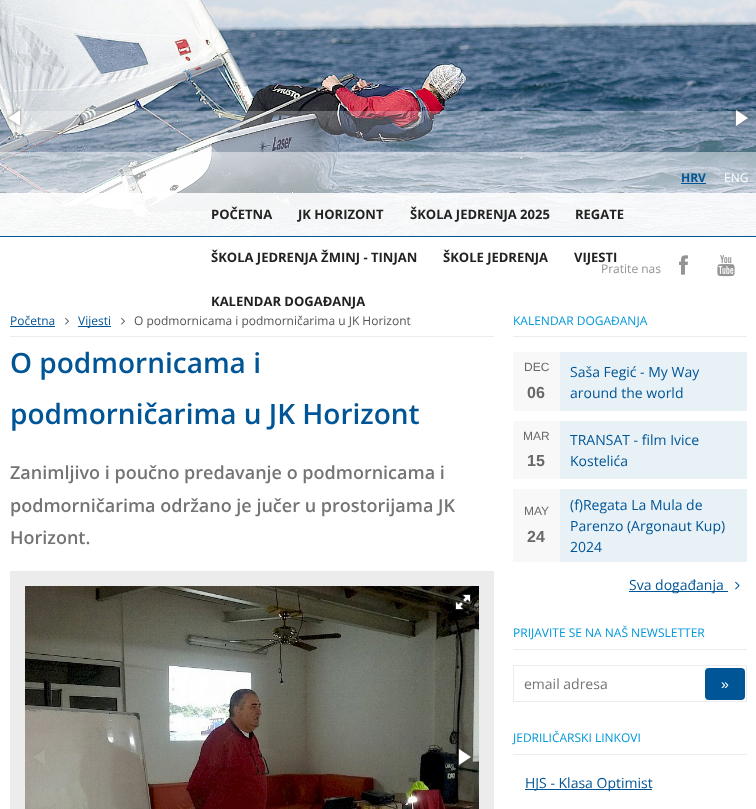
<!DOCTYPE html>
<meta charset="utf-8">
<style>body { margin: 0 } canvas { display: block }</style>
<canvas id="canvas" width="756" height="809"></canvas>
<script type="module">
  const canvas = document.getElementById("canvas");
  const g = canvas.getContext("2d");
  g.miterLimit = 4;
  g.fontKerning = "normal";
  function drawText(s, x, y, [font, color]) {
    g.font = font;
    g.fillStyle = color;
    g.fillText(s, x, y);
  }
  function fillBox(x, y, w, h, color) {
    g.fillStyle = color;
    g.fillRect(x, y, w, h);
  }
  function fillRounded(x, y, w, h, r, color) {
    g.fillStyle = color;
    g.beginPath();
    g.roundRect(x, y, w, h, r);
    g.fill();
  }
  async function drawPicture(src, x, y, w, h) {
    const img = new Image();
    img.src = src;
    await img.decode();
    g.drawImage(img, x, y, w, h);
  }

  const s1 = ["bold 12px Open Sans", "#005596"];
  const s2 = ["12px Open Sans", "#FFFFFF"];
  const s3 = ["bold 13px Open Sans", "#222222"];
  const s4 = ["12px Open Sans", "#949494"];
  const s5 = ["12px Open Sans", "#005596"];
  const s6 = ["12px Open Sans", "#545454"];
  const s7 = ["600 28px Open Sans", "#005596"];
  const s8 = ["600 18px Open Sans", "#747474"];
  const s9 = ["12px Open Sans", "#0097DA"];
  const s10 = ["12px Liberation Sans", "#686868"];
  const s11 = ["bold 16px Liberation Sans", "#686868"];
  const s12 = ["14px Open Sans", "#005596"];
  const s13 = ["14px Open Sans", "#747474"];
  const s14 = ["14px Liberation Sans", "#FFFFFF"];

  fillBox(0, 0, 756, 809, "#FFFFFF");
  fillBox(0, 236, 756, 1, "#005596");
  await drawPicture("pic1.png", 0, 0, 756, 236);
  await drawPicture("pic2.png", 5, 107, 20, 22);
  await drawPicture("pic3.png", 732, 107, 18, 21);
  await drawPicture("pic4.png", 0, 111, 756, 125);
  drawText("HRV", 681, 182, s1);
  fillBox(681, 183, 25, 1, "#005596");
  drawText("ENG", 724, 182, s2);
  drawText("POČETNA", 211, 219, s3);
  drawText("JK HORIZONT", 298, 219, s3);
  drawText("ŠKOLA JEDRENJA 2025", 410, 219, s3);
  drawText("REGATE", 575, 219, s3);
  drawText("ŠKOLA JEDRENJA ŽMINJ - TINJAN", 211, 262, s3);
  drawText("ŠKOLE JEDRENJA", 443, 262, s3);
  drawText("VIJESTI", 574, 262, s3);
  drawText("KALENDAR DOGAĐANJA", 211, 306, s3);
  drawText("Pratite nas", 601, 273, s4);
  await drawPicture("pic5.png", 679, 255, 9, 20);
  await drawPicture("pic6.png", 717, 255, 18, 22);
  fillBox(10, 336, 484, 1, "#ECECEC");
  drawText("Početna", 10, 325, s5);
  fillBox(10, 326, 45, 1, "#005596");
  await drawPicture("pic7.png", 65, 317, 4, 8);
  fillBox(78, 326, 33, 1, "#005596");
  drawText("Vijesti", 78, 325, s5);
  await drawPicture("pic7.png", 121, 317, 4, 8);
  drawText("O podmornicama i podmorničarima u JK Horizont", 134, 325, s6);
  drawText("O podmornicama i", 10, 373, s7);
  drawText("podmorničarima u JK Horizont", 10, 424, s7);
  drawText("Zanimljivo i poučno predavanje o podmornicama i", 10, 479, s8);
  drawText("podmorničarima održano je jučer u prostorijama JK", 10, 512, s8);
  drawText("Horizont.", 10, 544, s8);
  fillBox(10, 571, 484, 238, "#ECECEC");
  await drawPicture("pic8.png", 25, 586, 454, 223);
  await drawPicture("pic9.png", 455, 594, 16, 16);
  await drawPicture("pic10.png", 34, 749, 12, 16);
  await drawPicture("pic11.png", 457, 747, 17, 19);
  fillBox(513, 336, 234, 1, "#ECECEC");
  drawText("KALENDAR DOGAĐANJA", 513, 325, s9);
  fillBox(513, 352, 47, 59, "#F9F8F8");
  drawText("DEC", 524, 371, s10);
  drawText("06", 527, 398, s11);
  fillBox(560, 352, 187, 59, "#E8F1F6");
  drawText("Saša Fegić - My Way", 570, 377, s12);
  drawText("around the world", 570, 398, s12);
  fillBox(513, 421, 47, 58, "#F9F8F8");
  drawText("MAR", 523, 440, s10);
  drawText("15", 527, 466, s11);
  fillBox(560, 421, 187, 58, "#E8F1F6");
  drawText("TRANSAT - film Ivice", 570, 445, s12);
  drawText("Kostelića", 570, 466, s12);
  fillBox(513, 489, 47, 73, "#F9F8F8");
  drawText("MAY", 524, 515, s10);
  drawText("24", 527, 542, s11);
  fillBox(560, 489, 187, 73, "#E8F1F6");
  drawText("(f)Regata La Mula de", 570, 510, s12);
  drawText("Parenzo (Argonaut Kup)", 570, 531, s12);
  drawText("2024", 570, 552, s12);
  fillBox(629, 591, 99, 1, "#005596");
  drawText("Sva događanja", 629, 590, s12);
  await drawPicture("pic12.png", 735, 581, 5, 9);
  fillBox(513, 649, 234, 1, "#ECECEC");
  drawText("PRIJAVITE SE NA NAŠ NEWSLETTER", 513, 637, s9);
  g.strokeStyle = "#ECECEC";
  g.strokeRect(513.5, 665.5, 233, 36);
  drawText("email adresa", 524, 689, s13);
  fillRounded(705, 668, 40, 32, 4, "#005596");
  drawText("»", 721, 689, s14);
  fillBox(513, 754, 234, 1, "#ECECEC");
  drawText("JEDRILIČARSKI LINKOVI", 513, 742, s9);
  fillBox(525, 789, 127, 1, "#005596");
  drawText("HJS - Klasa Optimist", 525, 788, s12);
</script>
